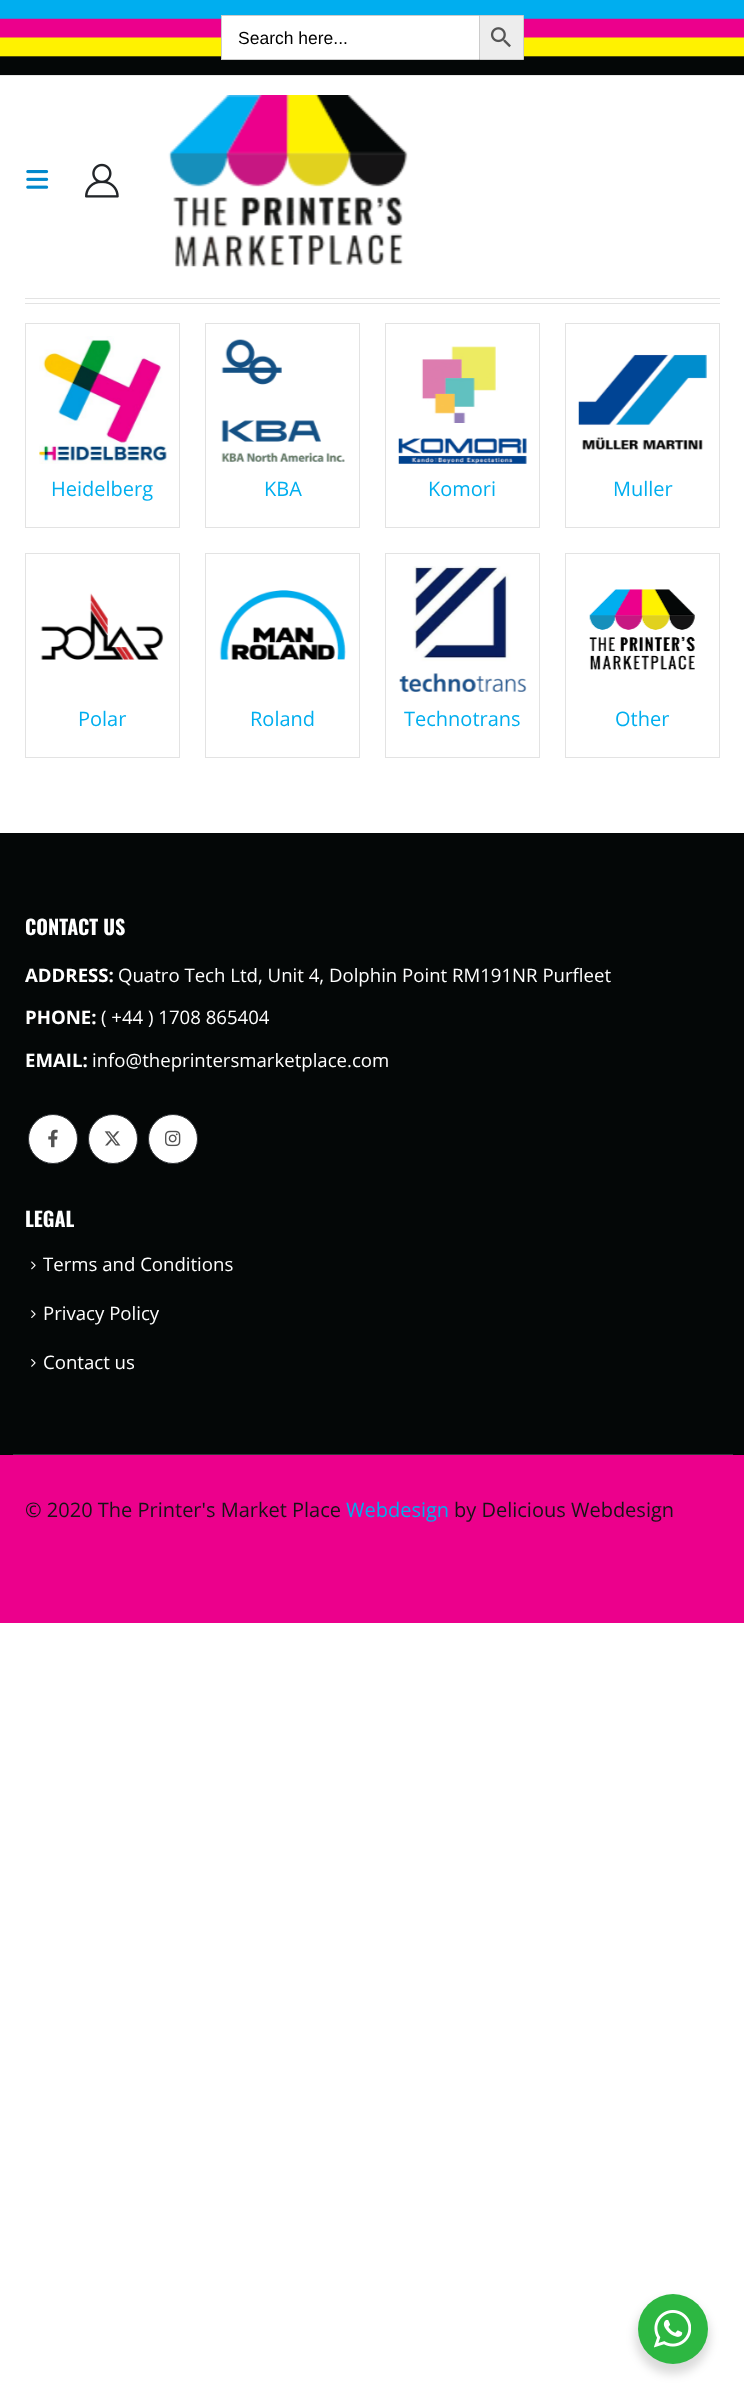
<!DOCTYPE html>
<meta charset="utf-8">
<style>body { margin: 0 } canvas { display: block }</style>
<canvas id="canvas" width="744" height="2401"></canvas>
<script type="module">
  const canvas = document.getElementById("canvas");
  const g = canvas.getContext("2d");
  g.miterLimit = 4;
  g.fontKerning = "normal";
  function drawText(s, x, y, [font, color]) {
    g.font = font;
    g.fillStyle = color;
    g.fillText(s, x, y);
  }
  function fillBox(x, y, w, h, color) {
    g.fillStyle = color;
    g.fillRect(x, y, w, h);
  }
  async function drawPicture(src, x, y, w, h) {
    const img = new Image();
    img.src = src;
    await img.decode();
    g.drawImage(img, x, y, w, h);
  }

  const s1 = ["17.5px Liberation Sans", "#000000"];
  const s2 = ["20px Open Sans", "#00AEEF"];
  const s3 = ["bold 20px Oswald", "#FFFFFF"];
  const s4 = ["bold 18.6px Open Sans", "#FFFFFF"];
  const s5 = ["18.6px Open Sans", "#FFFFFF"];
  const s6 = ["20px Open Sans", "#151415"];

  fillBox(0, 0, 744, 2401, "#FFFFFF");
  await drawPicture("pic1.png", 0, 0, 744, 75);
  fillBox(222, 16, 257, 43, "#FFFFFF");
  fillBox(221, 15, 258, 1, "#CCCCCC");
  fillBox(221, 59, 258, 1, "#CCCCCC");
  fillBox(221, 15, 1, 45, "#CCCCCC");
  drawText("Search here...", 238, 44, s1);
  g.fillStyle = "#EDEDED";
  g.beginPath();
  g.rect(479.5, 15.5, 44, 44);
  g.fill();
  g.strokeStyle = "#CCCCCC";
  g.stroke();
  await drawPicture("pic2.png", 490, 27, 21, 21);
  fillBox(0, 75, 744, 1, "#E7E7E7");
  await drawPicture("pic3.png", 26, 170, 23, 19);
  await drawPicture("pic4.png", 85, 163, 34, 35);
  await drawPicture("pic5.png", 168, 95, 240, 172);
  fillBox(25, 298, 695, 1, "#E3E3E3");
  fillBox(25, 303, 695, 1, "#E3E3E3");
  g.strokeStyle = "#E3E3E3";
  g.strokeRect(25.5, 323.5, 154, 204);
  await drawPicture("pic6.png", 39, 336, 128, 128);
  drawText("Heidelberg", 51, 496, s2);
  g.strokeRect(205.5, 323.5, 154, 204);
  await drawPicture("pic7.png", 221, 339, 124, 123);
  drawText("KBA", 264, 496, s2);
  g.strokeRect(385.5, 323.5, 154, 204);
  await drawPicture("pic8.png", 398, 346, 129, 118);
  drawText("Komori", 428, 496, s2);
  g.strokeRect(565.5, 323.5, 154, 204);
  await drawPicture("pic9.png", 578, 354, 129, 96);
  drawText("Muller", 613, 496, s2);
  g.strokeRect(25.5, 553.5, 154, 204);
  await drawPicture("pic10.png", 40, 593, 124, 67);
  drawText("Polar", 78, 726, s2);
  g.strokeRect(205.5, 553.5, 154, 204);
  await drawPicture("pic11.png", 219, 590, 127, 70);
  drawText("Roland", 250, 726, s2);
  g.strokeRect(385.5, 553.5, 154, 204);
  await drawPicture("pic12.png", 399, 566, 128, 126);
  drawText("Technotrans", 404, 726, s2);
  g.strokeRect(565.5, 553.5, 154, 204);
  await drawPicture("pic13.png", 589, 589, 106, 81);
  drawText("Other", 615, 726, s2);
  fillBox(0, 833, 744, 622, "#040707");
  drawText("CONTACT US", 25, 935, s3);
  drawText("ADDRESS:", 25, 982, s4);
  drawText("Quatro Tech Ltd, Unit 4, Dolphin Point RM191NR Purfleet", 118, 982, s5);
  drawText("PHONE:", 25, 1024, s4);
  drawText("( +44 ) 1708 865404", 101, 1024, s5);
  drawText("EMAIL:", 25, 1067, s4);
  drawText("info@theprintersmarketplace.com", 92, 1067, s5);
  g.beginPath();
  g.arc(53, 1139, 24.5, 0, Math.PI * 2);
  g.fill();
  g.strokeStyle = "#313438";
  g.stroke();
  await drawPicture("pic14.png", 48, 1129, 10, 19);
  g.beginPath();
  g.arc(113, 1139, 24.5, 0, Math.PI * 2);
  g.fill();
  g.stroke();
  await drawPicture("pic15.png", 104, 1131, 17, 15);
  g.beginPath();
  g.arc(173, 1139, 24.5, 0, Math.PI * 2);
  g.fill();
  g.stroke();
  await drawPicture("pic16.png", 165, 1130, 16, 17);
  drawText("LEGAL", 25, 1227, s3);
  await drawPicture("pic17.png", 31, 1261, 5, 9);
  drawText("Terms and Conditions", 43, 1271, s5);
  await drawPicture("pic18.png", 31, 1310, 5, 8);
  drawText("Privacy Policy", 43, 1320, s5);
  await drawPicture("pic19.png", 31, 1359, 5, 8);
  drawText("Contact us", 43, 1369, s5);
  fillBox(13, 1454, 720, 1, "#313438");
  fillBox(0, 1455, 744, 168, "#EC008C");
  drawText("© 2020 The Printer's Market Place", 25, 1517, s6);
  drawText("Webdesign", 346, 1517, s2);
  drawText("by Delicious Webdesign", 454, 1517, s6);
  g.fillStyle = "rgba(0, 0, 0, 0.14)";
  g.filter = "blur(5px)";
  g.beginPath();
  g.roundRect(635, 2299, 75, 75, 37.5);
  g.fill();
  g.filter = "none";
  g.fillStyle = "#2DB742";
  g.beginPath();
  g.arc(673, 2329, 35, 0, Math.PI * 2);
  g.fill();
  await drawPicture("pic20.png", 654, 2310, 37, 38);
</script>
